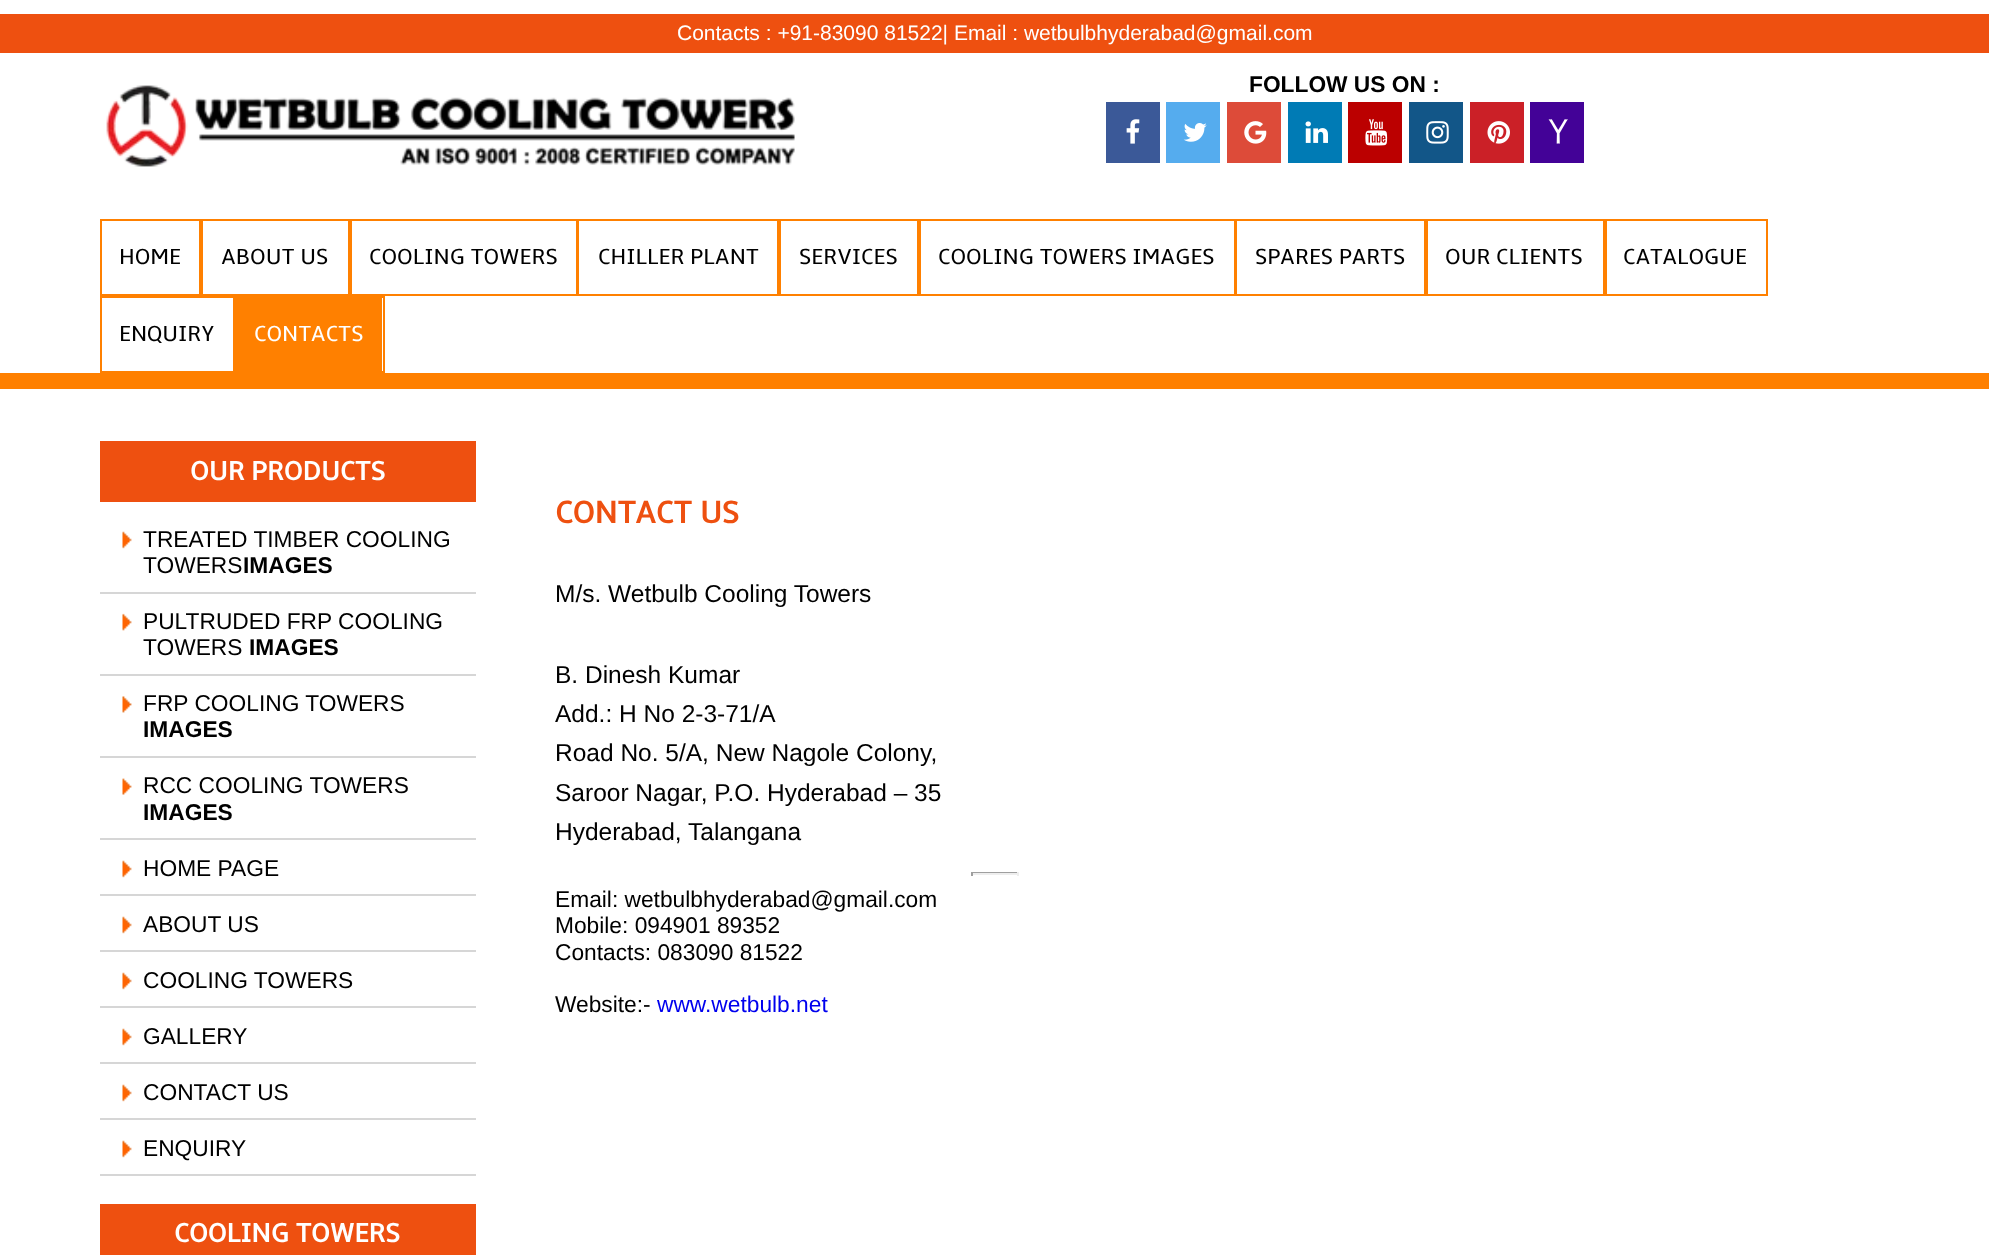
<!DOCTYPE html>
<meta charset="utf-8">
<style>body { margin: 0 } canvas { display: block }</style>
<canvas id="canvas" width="1989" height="1255"></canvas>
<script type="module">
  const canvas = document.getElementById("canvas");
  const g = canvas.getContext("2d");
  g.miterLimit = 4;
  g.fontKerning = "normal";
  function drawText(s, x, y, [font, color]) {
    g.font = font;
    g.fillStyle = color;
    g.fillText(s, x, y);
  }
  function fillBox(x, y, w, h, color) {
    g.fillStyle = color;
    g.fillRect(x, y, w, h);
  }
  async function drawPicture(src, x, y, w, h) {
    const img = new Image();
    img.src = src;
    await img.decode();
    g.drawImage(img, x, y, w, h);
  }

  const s1 = ["21px Liberation Sans", "#FFFFFF"];
  const s2 = ["bold 22.75px Liberation Sans", "#000000"];
  const s3 = ["22.75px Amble", "#000000"];
  const s4 = ["22.75px Amble", "#FFFFFF"];
  const s5 = ["bold 27.25px Amble", "#FFFFFF"];
  const s6 = ["22.75px Liberation Sans", "#000000"];
  const s7 = ["bold 32px Amble", "#EE5010"];
  const s8 = ["24.5px Liberation Sans", "#000000"];
  const s9 = ["22.75px Liberation Sans", "#0000EE"];

  fillBox(0, 0, 1989, 1255, "#FFFFFF");
  fillBox(0, 14, 1989, 39, "#EE5010");
  drawText("Contacts : +91-83090 81522| Email : wetbulbhyderabad@gmail.com", 677, 40, s1);
  await drawPicture("pic1.png", 106, 85, 689, 82);
  drawText("FOLLOW US ON :", 1249, 92, s2);
  fillBox(1106, 102, 54, 61, "#3B5998");
  await drawPicture("pic2.png", 1126, 119, 14, 25);
  fillBox(1166, 102, 54, 61, "#55ACEE");
  await drawPicture("pic3.png", 1183, 123, 24, 19);
  fillBox(1227, 102, 54, 61, "#DD4B39");
  await drawPicture("pic4.png", 1244, 121, 23, 23);
  fillBox(1288, 102, 54, 61, "#007BB5");
  await drawPicture("pic5.png", 1305, 121, 23, 22);
  fillBox(1348, 102, 54, 61, "#BB0000");
  await drawPicture("pic6.png", 1365, 119, 23, 27);
  fillBox(1409, 102, 54, 61, "#125688");
  await drawPicture("pic7.png", 1426, 121, 23, 23);
  fillBox(1470, 102, 54, 61, "#CB2027");
  await drawPicture("pic8.png", 1487, 121, 23, 23);
  fillBox(1530, 102, 54, 61, "#430297");
  await drawPicture("pic9.png", 1548, 119, 20, 25);
  g.strokeStyle = "#FF8000";
  g.lineWidth = 2;
  g.strokeRect(101, 220, 99, 75);
  drawText("HOME", 119, 264, s3);
  g.strokeRect(202, 220, 147, 75);
  drawText("ABOUT US", 221, 264, s3);
  g.strokeRect(351, 220, 226, 75);
  drawText("COOLING TOWERS", 369, 264, s3);
  g.strokeRect(579, 220, 199, 75);
  fillBox(579, 221, 1, 73, "#FFFFFF");
  drawText("CHILLER PLANT", 598, 264, s3);
  g.strokeRect(780, 220, 138, 75);
  drawText("SERVICES", 799, 264, s3);
  g.strokeRect(920, 220, 315, 75);
  drawText("COOLING TOWERS IMAGES", 938, 264, s3);
  g.strokeRect(1237, 220, 188, 75);
  fillBox(1237, 221, 1, 73, "#FFFFFF");
  drawText("SPARES PARTS", 1255, 264, s3);
  g.strokeRect(1427, 220, 177, 75);
  drawText("OUR CLIENTS", 1445, 264, s3);
  g.strokeRect(1606, 220, 161, 75);
  drawText("CATALOGUE", 1623, 264, s3);
  g.strokeRect(101, 297, 133, 75);
  drawText("ENQUIRY", 119, 341, s3);
  g.strokeRect(236, 297, 148, 75);
  fillBox(237, 298, 145, 73, "#FF8000");
  drawText("CONTACTS", 254, 341, s4);
  fillBox(0, 373, 1989, 16, "#FF8000");
  fillBox(100, 441, 376, 61, "#EE5010");
  drawText("OUR PRODUCTS", 190, 480, s5);
  await drawPicture("pic10.png", 122, 531, 10, 18);
  fillBox(100, 592, 376, 2, "#D6D6D6");
  drawText("TREATED TIMBER COOLING", 143, 547, s6);
  drawText("TOWERS", 143, 573, s6);
  drawText("IMAGES", 243, 573, s2);
  await drawPicture("pic11.png", 122, 613, 10, 18);
  fillBox(100, 674, 376, 2, "#D6D6D6");
  drawText("PULTRUDED FRP COOLING", 143, 629, s6);
  drawText("TOWERS", 143, 655, s6);
  drawText("IMAGES", 249, 655, s2);
  await drawPicture("pic12.png", 122, 696, 10, 17);
  fillBox(100, 756, 376, 2, "#D6D6D6");
  drawText("FRP COOLING TOWERS", 143, 711, s6);
  drawText("IMAGES", 143, 737, s2);
  await drawPicture("pic13.png", 122, 778, 10, 17);
  fillBox(100, 838, 376, 2, "#D6D6D6");
  drawText("RCC COOLING TOWERS", 143, 793, s6);
  drawText("IMAGES", 143, 820, s2);
  await drawPicture("pic10.png", 122, 860, 10, 18);
  fillBox(100, 894, 376, 2, "#D6D6D6");
  drawText("HOME PAGE", 143, 876, s6);
  await drawPicture("pic10.png", 122, 916, 10, 18);
  fillBox(100, 950, 376, 2, "#D6D6D6");
  drawText("ABOUT US", 143, 932, s6);
  await drawPicture("pic10.png", 122, 972, 10, 18);
  fillBox(100, 1006, 376, 2, "#D6D6D6");
  drawText("COOLING TOWERS", 143, 988, s6);
  await drawPicture("pic10.png", 122, 1028, 10, 18);
  fillBox(100, 1062, 376, 2, "#D6D6D6");
  drawText("GALLERY", 143, 1044, s6);
  await drawPicture("pic10.png", 122, 1084, 10, 18);
  fillBox(100, 1118, 376, 2, "#D6D6D6");
  drawText("CONTACT US", 143, 1100, s6);
  await drawPicture("pic10.png", 122, 1140, 10, 18);
  fillBox(100, 1174, 376, 2, "#D6D6D6");
  drawText("ENQUIRY", 143, 1156, s6);
  fillBox(100, 1204, 376, 51, "#EE5010");
  drawText("COOLING TOWERS", 174, 1242, s5);
  drawText("CONTACT US", 555, 523, s7);
  drawText("M/s. Wetbulb Cooling Towers", 555, 602, s8);
  drawText("B. Dinesh Kumar", 555, 683, s8);
  drawText("Add.: H No 2-3-71/A", 555, 722, s8);
  drawText("Road No. 5/A, New Nagole Colony,", 555, 761, s8);
  drawText("Saroor Nagar, P.O. Hyderabad – 35", 555, 801, s8);
  drawText("Hyderabad, Talangana", 555, 840, s8);
  fillBox(971, 872, 48, 1, "#9F9F9F");
  fillBox(1017, 872, 2, 4, "#EEEEEE");
  fillBox(971, 873, 48, 2, "#EEEEEE");
  fillBox(971, 872, 2, 4, "#9F9F9F");
  drawText("Email: wetbulbhyderabad@gmail.com", 555, 907, s6);
  drawText("Mobile: 094901 89352", 555, 933, s6);
  drawText("Contacts: 083090 81522", 555, 960, s6);
  drawText("Website:-", 555, 1012, s6);
  drawText("www.wetbulb.net", 657, 1012, s9);
</script>
